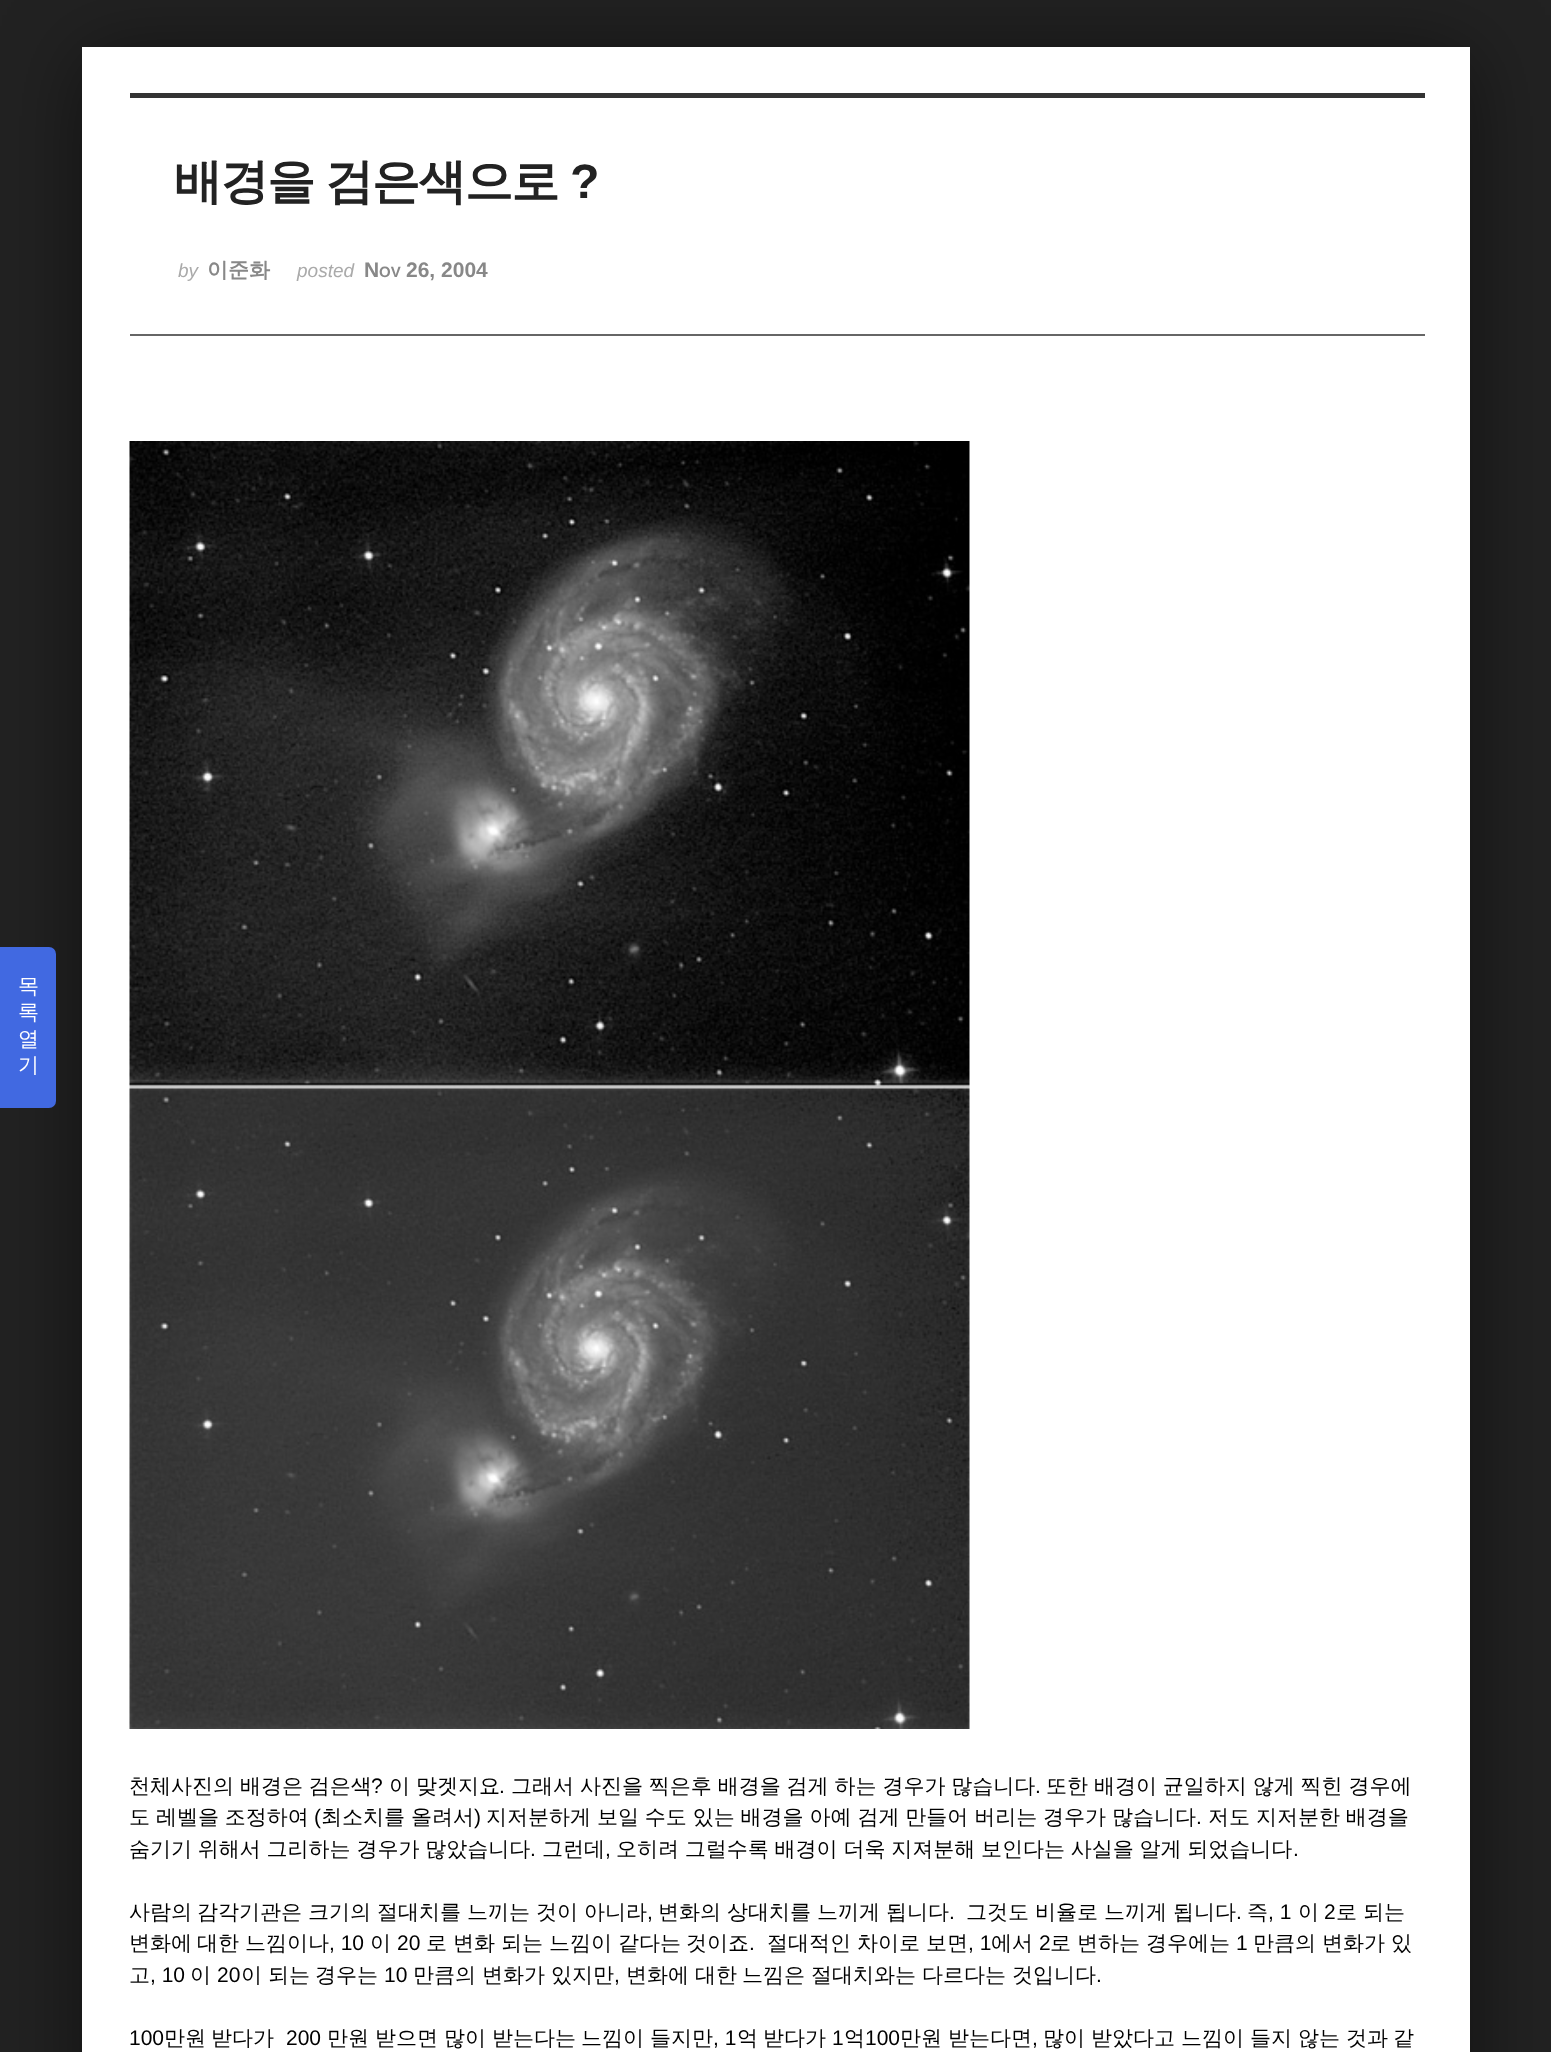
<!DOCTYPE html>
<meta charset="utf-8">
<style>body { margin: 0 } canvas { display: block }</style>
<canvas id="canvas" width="1551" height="2052"></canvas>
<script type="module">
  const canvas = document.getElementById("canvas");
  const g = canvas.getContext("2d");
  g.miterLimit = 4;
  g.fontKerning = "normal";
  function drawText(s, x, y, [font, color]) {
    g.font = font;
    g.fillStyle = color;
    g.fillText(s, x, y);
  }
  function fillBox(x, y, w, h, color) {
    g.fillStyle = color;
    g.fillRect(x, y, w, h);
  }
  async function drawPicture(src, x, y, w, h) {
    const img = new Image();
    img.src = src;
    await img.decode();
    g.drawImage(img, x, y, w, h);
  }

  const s1 = ["500 21px WenQuanYi Zen Hei", "#FFFFFF"];
  const s2 = ["bold 48.25px WenQuanYi Zen Hei", "#222222"];
  const s3 = ["bold 48.25px Liberation Sans", "#222222"];
  const s4 = ["italic 19px Liberation Sans", "#AAAAAA"];
  const s5 = ["bold 21px WenQuanYi Zen Hei", "#888888"];
  const s6 = ["bold 21px Liberation Sans", "#888888"];
  const s7 = ["bold 15px Liberation Sans", "#888888"];
  const s8 = ["500 21px WenQuanYi Zen Hei", "#000000"];
  const s9 = ["21px Liberation Sans", "#000000"];

  fillBox(0, 0, 1551, 2052, "#222222");
  g.fillStyle = "rgba(0, 0, 0, 0.5)";
  g.filter = "blur(42px)";
  g.beginPath();
  g.rect(82, 54, 1388, 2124);
  g.fill();
  g.filter = "none";
  fillBox(82, 47, 1388, 2005, "#FFFFFF");
  g.fillStyle = "#4169E1";
  g.beginPath();
  g.roundRect(0, 947, 56, 161, [0, 7, 7, 0]);
  g.fill();
  drawText("목", 18, 993, s1);
  drawText("록", 18, 1019, s1);
  drawText("열", 18, 1046, s1);
  drawText("기", 18, 1072, s1);
  fillBox(130, 93, 1295, 5, "#333333");
  fillBox(130, 334, 1295, 2, "#666666");
  g.letterSpacing = "-1.75px";
  g.wordSpacing = "-1px";
  drawText("배경을 검은색으로", 174, 198, s2);
  g.wordSpacing = "0px";
  drawText("?", 570, 198, s3);
  g.letterSpacing = "0px";
  drawText("by", 178, 277, s4);
  drawText("이준화", 207, 277, s5);
  drawText("posted", 297, 277, s4);
  drawText("N", 364, 277, s6);
  drawText("OV", 379, 277, s7);
  drawText("26, 2004", 406, 277, s6);
  await drawPicture("pic1.png", 129, 441, 841, 1288);
  g.wordSpacing = "-0.4px";
  drawText("천체사진의 배경은 검은색", 129, 1793, s8);
  g.wordSpacing = "0px";
  drawText("?", 371, 1793, s9);
  g.wordSpacing = "-0.4px";
  drawText("이 맞겟지요", 389, 1793, s8);
  g.wordSpacing = "0px";
  drawText(".", 499, 1793, s9);
  g.wordSpacing = "-0.4px";
  drawText("그래서 사진을 찍은후 배경을 검게 하는 경우가 많습니다", 511, 1793, s8);
  g.wordSpacing = "0px";
  drawText(".", 1035, 1793, s9);
  g.wordSpacing = "-0.4px";
  drawText("또한 배경이 균일하지 않게 찍힌 경우에", 1046, 1793, s8);
  drawText("도 레벨을 조정하여", 129, 1824, s8);
  g.wordSpacing = "0px";
  drawText("(", 314, 1824, s9);
  g.wordSpacing = "-0.4px";
  drawText("최소치를 올려서", 321, 1824, s8);
  g.wordSpacing = "0px";
  drawText(")", 474, 1824, s9);
  g.wordSpacing = "-0.4px";
  drawText("지저분하게 보일 수도 있는 배경을 아예 검게 만들어 버리는 경우가 많습니다", 486, 1824, s8);
  g.wordSpacing = "0px";
  drawText(".", 1196, 1824, s9);
  g.wordSpacing = "-0.4px";
  drawText("저도 지저분한 배경을", 1208, 1824, s8);
  g.wordSpacing = "-0.5px";
  drawText("숨기기 위해서 그리하는 경우가 많았습니다", 129, 1856, s8);
  g.wordSpacing = "0px";
  drawText(".", 530, 1856, s9);
  drawText("그런데", 542, 1856, s8);
  drawText(",", 605, 1856, s9);
  g.wordSpacing = "-0.5px";
  drawText("오히려 그럴수록 배경이 더욱 지져분해 보인다는 사실을 알게 되었습니다", 616, 1856, s8);
  g.wordSpacing = "0px";
  drawText(".", 1293, 1856, s9);
  drawText("사람의", 129, 1919, s8);
  drawText("감각기관은", 197, 1919, s8);
  drawText("크기의", 308, 1919, s8);
  drawText("절대치를", 377, 1919, s8);
  drawText("느끼는", 467, 1919, s8);
  drawText("것이", 536, 1919, s8);
  drawText("아니라", 584, 1919, s8);
  drawText(",", 647, 1919, s9);
  drawText("변화의", 658, 1919, s8);
  drawText("상대치를", 727, 1919, s8);
  drawText("느끼게", 817, 1919, s8);
  drawText("됩니다", 886, 1919, s8);
  drawText(".", 949, 1919, s9);
  drawText("그것도", 966, 1919, s8);
  drawText("비율로", 1035, 1919, s8);
  drawText("느끼게", 1104, 1919, s8);
  drawText("됩니다", 1173, 1919, s8);
  drawText(".", 1236, 1919, s9);
  drawText("즉", 1247, 1919, s8);
  drawText(", 1", 1268, 1919, s9);
  drawText("이", 1298, 1919, s8);
  drawText("2", 1324, 1919, s9);
  drawText("로", 1336, 1919, s8);
  drawText("되는", 1363, 1919, s8);
  drawText("변화에", 129, 1950, s8);
  drawText("대한", 197, 1950, s8);
  drawText("느낌이나", 245, 1950, s8);
  drawText(", 10", 329, 1950, s9);
  drawText("이", 370, 1950, s8);
  drawText("20", 397, 1950, s9);
  drawText("로", 426, 1950, s8);
  drawText("변화", 453, 1950, s8);
  drawText("되는", 501, 1950, s8);
  drawText("느낌이", 549, 1950, s8);
  drawText("같다는", 618, 1950, s8);
  drawText("것이죠", 686, 1950, s8);
  drawText(".", 749, 1950, s9);
  drawText("절대적인", 767, 1950, s8);
  drawText("차이로", 857, 1950, s8);
  drawText("보면", 926, 1950, s8);
  drawText(", 1", 968, 1950, s9);
  drawText("에서", 991, 1950, s8);
  drawText("2", 1039, 1950, s9);
  drawText("로", 1050, 1950, s8);
  drawText("변하는", 1077, 1950, s8);
  drawText("경우에는", 1146, 1950, s8);
  drawText("1", 1236, 1950, s9);
  drawText("만큼의", 1253, 1950, s8);
  drawText("변화가", 1322, 1950, s8);
  drawText("있", 1391, 1950, s8);
  drawText("고", 129, 1982, s8);
  drawText(", 10", 150, 1982, s9);
  drawText("이", 190, 1982, s8);
  drawText("20", 217, 1982, s9);
  drawText("이", 241, 1982, s8);
  drawText("되는", 268, 1982, s8);
  drawText("경우는", 315, 1982, s8);
  drawText("10", 384, 1982, s9);
  drawText("만큼의", 413, 1982, s8);
  drawText("변화가", 482, 1982, s8);
  drawText("있지만", 551, 1982, s8);
  drawText(",", 614, 1982, s9);
  drawText("변화에", 626, 1982, s8);
  drawText("대한", 695, 1982, s8);
  drawText("느낌은", 742, 1982, s8);
  drawText("절대치와는", 811, 1982, s8);
  drawText("다르다는", 922, 1982, s8);
  drawText("것입니다", 1012, 1982, s8);
  drawText(".", 1096, 1982, s9);
  drawText("100", 129, 2045, s9);
  drawText("만원", 164, 2045, s8);
  drawText("받다가", 211, 2045, s8);
  drawText("200", 286, 2045, s9);
  drawText("만원", 327, 2045, s8);
  drawText("받으면", 375, 2045, s8);
  drawText("많이", 444, 2045, s8);
  drawText("받는다는", 492, 2045, s8);
  drawText("느낌이", 581, 2045, s8);
  drawText("들지만", 650, 2045, s8);
  drawText(", 1", 713, 2045, s9);
  drawText("억", 737, 2045, s8);
  drawText("받다가", 763, 2045, s8);
  drawText("1", 832, 2045, s9);
  drawText("억", 844, 2045, s8);
  drawText("100", 865, 2045, s9);
  drawText("만원", 900, 2045, s8);
  drawText("받는다면", 948, 2045, s8);
  drawText(",", 1032, 2045, s9);
  drawText("많이", 1043, 2045, s8);
  drawText("받았다고", 1091, 2045, s8);
  drawText("느낌이", 1181, 2045, s8);
  drawText("들지", 1250, 2045, s8);
  drawText("않는", 1298, 2045, s8);
  drawText("것과", 1346, 2045, s8);
  drawText("같", 1393, 2045, s8);
</script>
